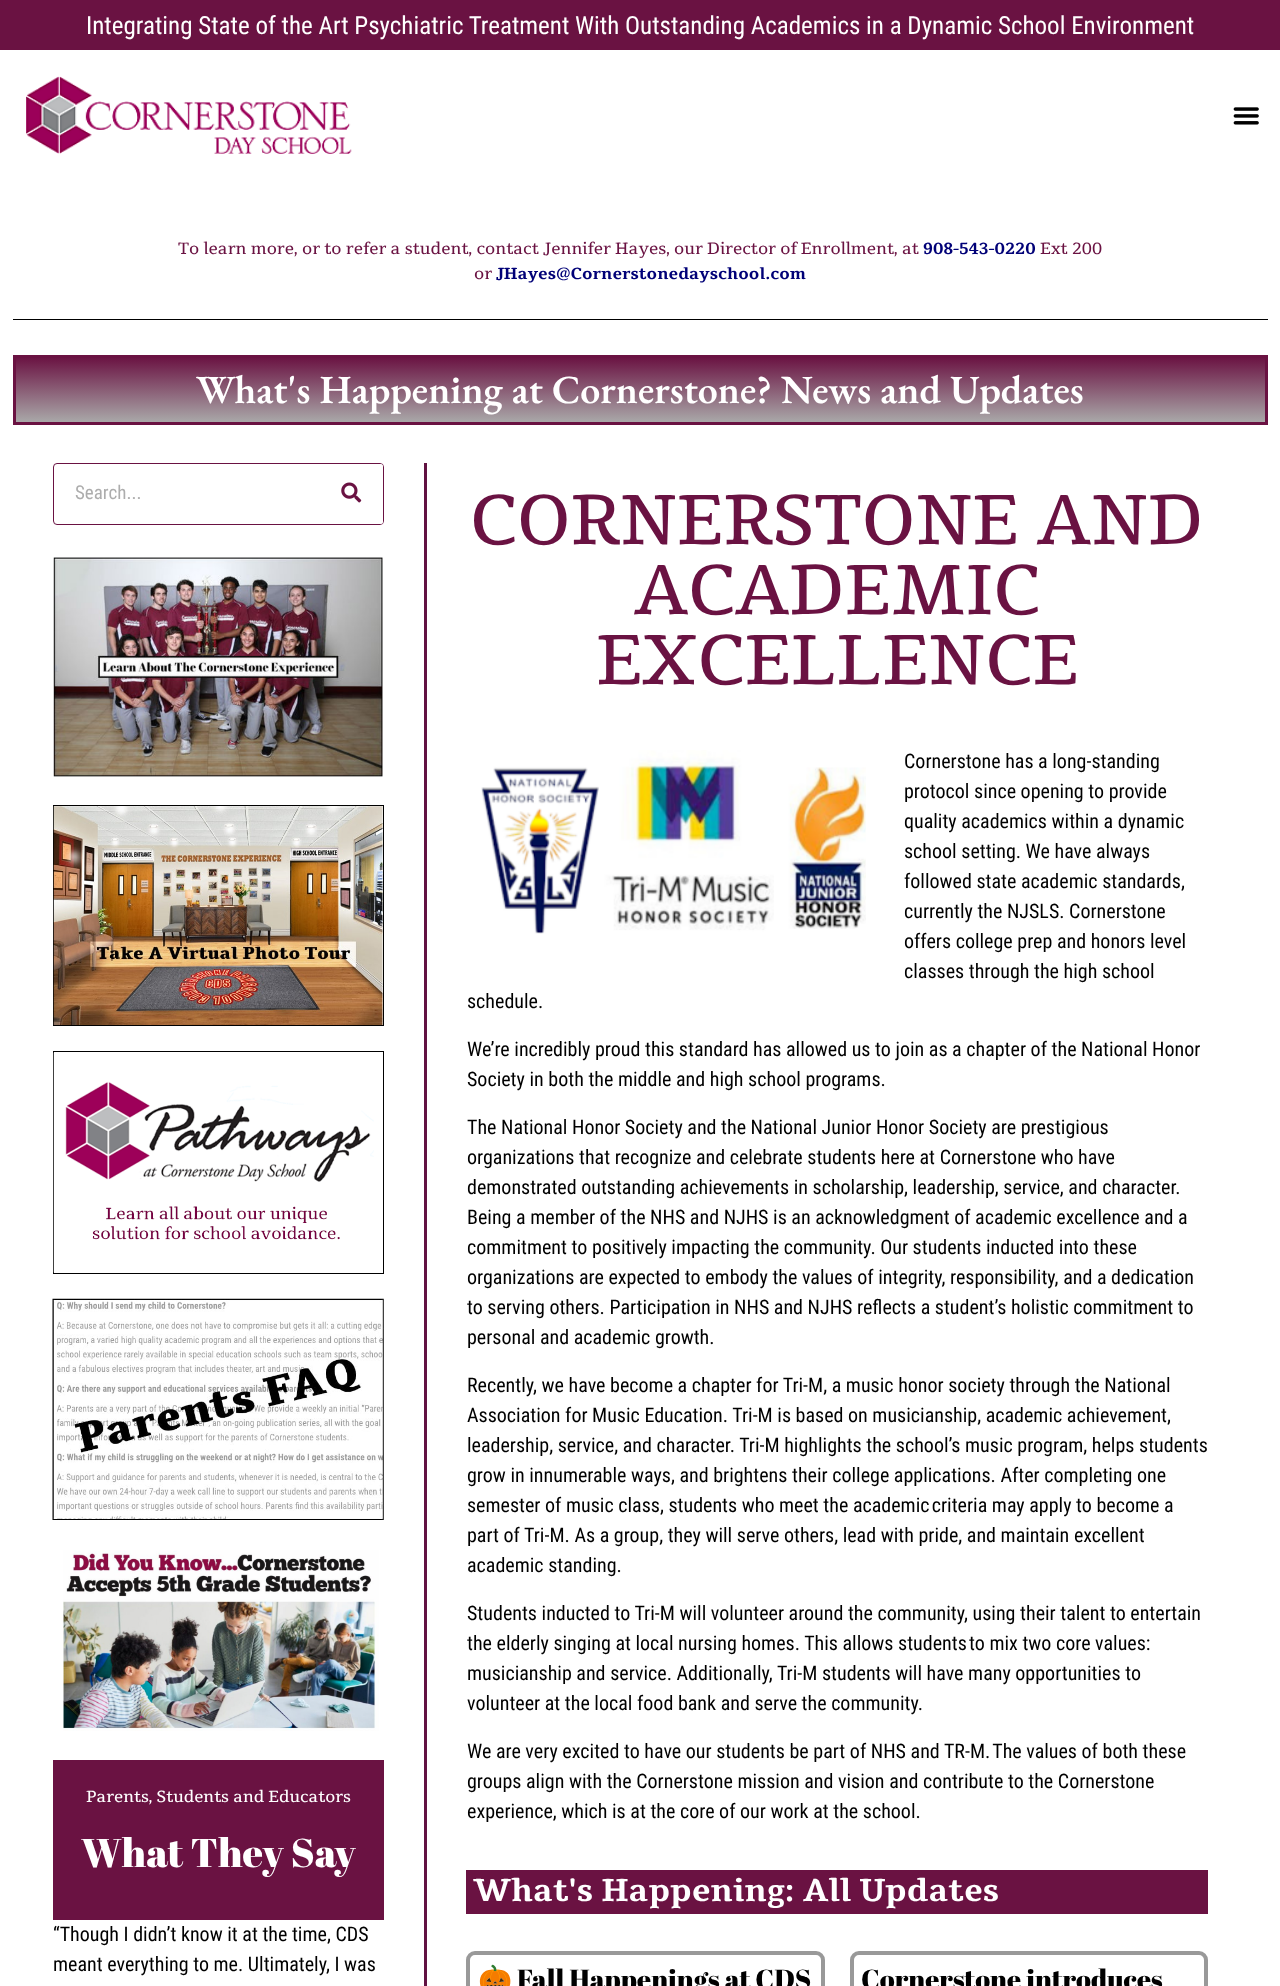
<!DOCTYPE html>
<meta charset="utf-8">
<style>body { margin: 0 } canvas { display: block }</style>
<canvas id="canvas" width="1280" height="1986"></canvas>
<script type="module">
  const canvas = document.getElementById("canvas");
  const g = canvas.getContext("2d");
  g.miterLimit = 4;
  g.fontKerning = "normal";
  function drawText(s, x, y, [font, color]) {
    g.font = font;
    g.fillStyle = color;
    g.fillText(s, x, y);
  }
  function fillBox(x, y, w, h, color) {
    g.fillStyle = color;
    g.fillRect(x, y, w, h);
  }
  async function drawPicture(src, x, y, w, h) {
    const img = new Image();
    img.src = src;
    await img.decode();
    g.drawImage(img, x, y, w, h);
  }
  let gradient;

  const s1 = ["25px Roboto Condensed", "#FFFFFF"];
  const s2 = ["16.25px Tienne", "#6A1242"];
  const s3 = ["bold 16.25px Tienne", "#000077"];
  const s4 = ["600 40px EB Garamond", "#FFFFFF"];
  const s5 = ["19px Roboto Condensed", "#ADADAD"];
  const s6 = ["16px Tienne", "#FFFFFF"];
  const s7 = ["40px Abril Fatface", "#FFFFFF"];
  const s8 = ["20px Roboto Condensed", "#000000"];
  const s9 = ["70px Tienne", "#6A1242"];
  const s10 = ["bold 32px Tienne", "#FFFFFF"];
  const s11 = ["27.5px Noto Color Emoji", "#000000"];
  const s12 = ["27.5px Abril Fatface", "#000000"];

  fillBox(0, 0, 1280, 1986, "#FFFFFF");
  fillBox(0, 0, 1280, 50, "#6A1242");
  drawText("Integrating State of the Art Psychiatric Treatment With Outstanding Academics in a Dynamic School Environment", 86, 34, s1);
  await drawPicture("pic1.png", 26, 76, 326, 78);
  await drawPicture("pic2.png", 1233, 107, 26, 18);
  fillBox(13, 319, 1255, 1, "#000000");
  drawText("To learn more, or to refer a student, contact Jennifer Hayes, our Director of Enrollment, at", 178, 254, s2);
  drawText("908-543-0220", 923, 254, s3);
  drawText("Ext 200", 1040, 254, s2);
  drawText("or", 474, 279, s2);
  drawText("JHayes@Cornerstonedayschool.com", 496, 279, s3);
  gradient = g.createLinearGradient(640, 357, 640, 423);
  gradient.addColorStop(0, "#6A1242");
  gradient.addColorStop(1, "#AAAAAA");
  g.fillStyle = gradient;
  g.fillRect(16, 358, 1249, 64);
  g.strokeStyle = "#6A1242";
  g.lineWidth = 3;
  g.strokeRect(14.5, 356.5, 1252, 67);
  drawText("What's Happening at Cornerstone? News and Updates", 196, 403, s4);
  fillBox(424, 463, 3, 1523, "#611242");
  g.beginPath();
  g.roundRect(53.5, 463.5, 330, 61, 3.5);
  g.lineWidth = 1;
  g.stroke();
  drawText("Search...", 75, 499, s5);
  g.fillStyle = "#FFFFFF";
  g.beginPath();
  g.roundRect(320, 464, 63, 60, [0, 2.5, 2.5, 0]);
  g.fill();
  await drawPicture("pic3.png", 341, 482, 21, 21);
  await drawPicture("pic4.png", 53, 557, 330, 220);
  g.strokeStyle = "#000000";
  g.strokeRect(53.5, 805.5, 330, 220);
  await drawPicture("pic5.png", 53, 806, 330, 219);
  g.strokeRect(53.5, 1051.5, 330, 222);
  await drawPicture("pic6.png", 53, 1052, 321, 221);
  await drawPicture("pic7.png", 52, 1298, 332, 222);
  await drawPicture("pic8.png", 63, 1550, 316, 181);
  fillBox(53, 1760, 331, 160, "#6A1242");
  drawText("Parents, Students and Educators", 86, 1802, s6);
  drawText("What They Say", 81, 1867, s7);
  drawText("“Though I didn’t know it at the time, CDS", 53, 1941, s8);
  drawText("meant everything to me. Ultimately, I was", 53, 1971, s8);
  drawText("CORNERSTONE AND", 470, 544, s9);
  drawText("ACADEMIC", 634, 614, s9);
  drawText("EXCELLENCE", 596, 684, s9);
  await drawPicture("pic9.png", 481, 750, 385, 184);
  drawText("Cornerstone has a long-standing", 904, 768, s8);
  drawText("protocol since opening to provide", 904, 798, s8);
  drawText("quality academics within a dynamic", 904, 828, s8);
  drawText("school setting. We have always", 904, 858, s8);
  drawText("followed state academic standards,", 904, 888, s8);
  drawText("currently the NJSLS. Cornerstone", 904, 918, s8);
  drawText("offers college prep and honors level", 904, 948, s8);
  drawText("classes through the high school", 904, 978, s8);
  drawText("schedule.", 467, 1008, s8);
  drawText("We’re incredibly proud this standard has allowed us to join as a chapter of the National Honor", 467, 1056, s8);
  drawText("Society in both the middle and high school programs.", 467, 1086, s8);
  drawText("The National Honor Society and the National Junior Honor Society are prestigious", 467, 1134, s8);
  drawText("organizations that recognize and celebrate students here at Cornerstone who have", 467, 1164, s8);
  drawText("demonstrated outstanding achievements in scholarship, leadership, service, and character.", 467, 1194, s8);
  drawText("Being a member of the NHS and NJHS is an acknowledgment of academic excellence and a", 467, 1224, s8);
  drawText("commitment to positively impacting the community. Our students inducted into these", 467, 1254, s8);
  drawText("organizations are expected to embody the values of integrity, responsibility, and a dedication", 467, 1284, s8);
  drawText("to serving others. Participation in NHS and NJHS reflects a student’s holistic commitment to", 467, 1314, s8);
  drawText("personal and academic growth.", 467, 1344, s8);
  drawText("Recently, we have become a chapter for Tri-M, a music honor society through the National", 467, 1392, s8);
  drawText("Association for Music Education. Tri-M is based on musicianship, academic achievement,", 467, 1422, s8);
  drawText("leadership, service, and character. Tri-M highlights the school’s music program, helps students", 467, 1452, s8);
  drawText("grow in innumerable ways, and brightens their college applications. After completing one", 467, 1482, s8);
  drawText("semester of music class, students who meet the academic criteria may apply to become a", 467, 1512, s8);
  drawText("part of Tri-M. As a group, they will serve others, lead with pride, and maintain excellent", 467, 1542, s8);
  drawText("academic standing.", 467, 1572, s8);
  drawText("Students inducted to Tri-M will volunteer around the community, using their talent to entertain", 467, 1620, s8);
  drawText("the elderly singing at local nursing homes. This allows students to mix two core values:", 467, 1650, s8);
  drawText("musicianship and service. Additionally, Tri-M students will have many opportunities to", 467, 1680, s8);
  drawText("volunteer at the local food bank and serve the community.", 467, 1710, s8);
  drawText("We are very excited to have our students be part of NHS and TR-M. The values of both these", 467, 1758, s8);
  drawText("groups align with the Cornerstone mission and vision and contribute to the Cornerstone", 467, 1788, s8);
  drawText("experience, which is at the core of our work at the school.", 467, 1818, s8);
  fillBox(466, 1870, 742, 44, "#6A1242");
  drawText("What's Happening: All Updates", 473, 1901, s10);
  g.beginPath();
  g.roundRect(468, 1953, 355, 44, 7);
  g.strokeStyle = "#999999";
  g.lineWidth = 4;
  g.stroke();
  drawText("🎃", 478, 1989, s11);
  drawText("Fall Happenings at CDS", 517, 1989, s12);
  g.beginPath();
  g.roundRect(852, 1953, 354, 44, 7);
  g.stroke();
  drawText("Cornerstone introduces", 861, 1989, s12);
</script>
